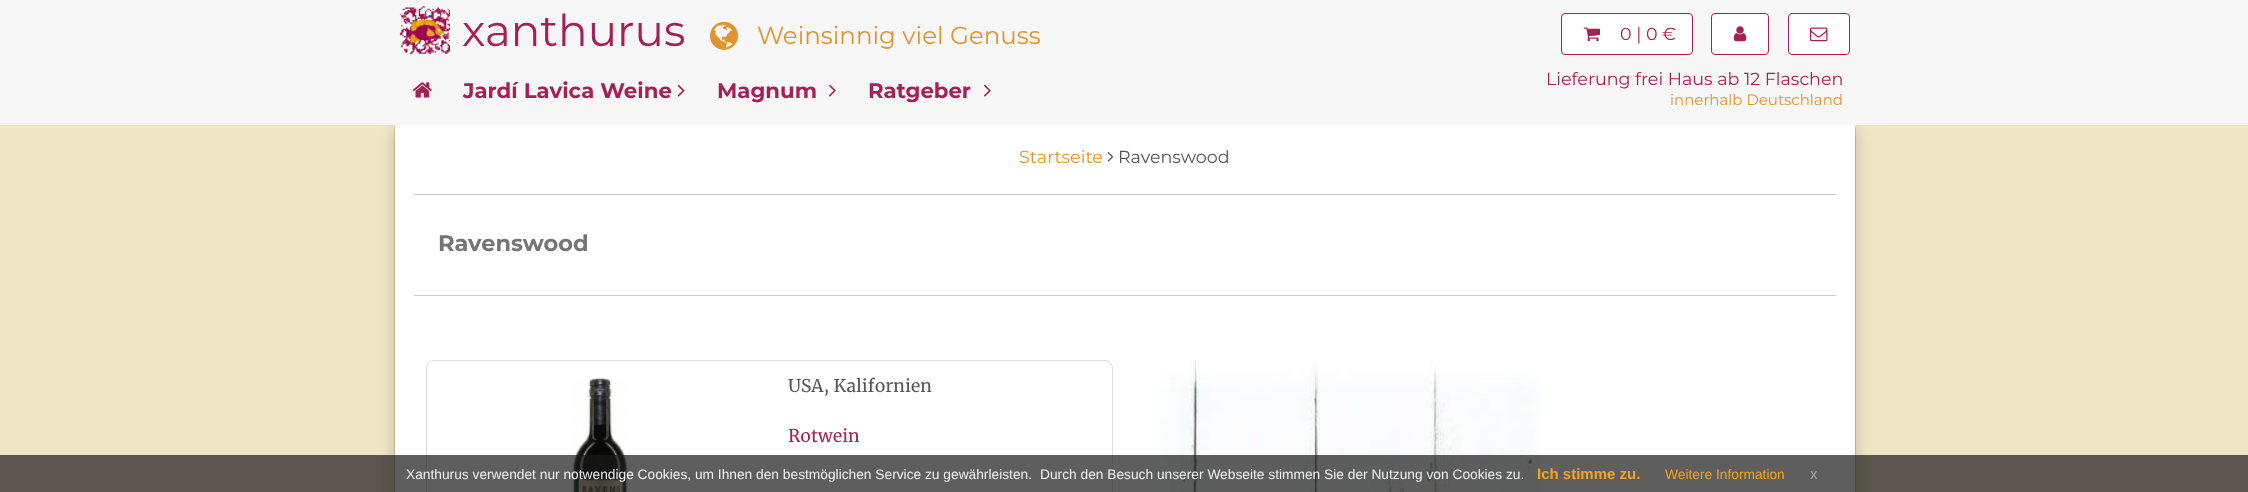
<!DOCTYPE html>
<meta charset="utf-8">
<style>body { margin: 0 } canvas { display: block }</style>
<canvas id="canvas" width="2248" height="492"></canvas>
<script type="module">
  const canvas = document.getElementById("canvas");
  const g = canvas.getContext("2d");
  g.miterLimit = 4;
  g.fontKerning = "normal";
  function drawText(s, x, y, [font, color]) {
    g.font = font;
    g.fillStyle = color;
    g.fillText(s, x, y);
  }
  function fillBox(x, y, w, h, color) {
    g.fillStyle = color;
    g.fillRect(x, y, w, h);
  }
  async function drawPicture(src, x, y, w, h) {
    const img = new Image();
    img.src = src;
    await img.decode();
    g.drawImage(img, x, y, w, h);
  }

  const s1 = ["100 43.75px Montserrat", "#A62055"];
  const s2 = ["100 24.5px Montserrat", "#DF942F"];
  const s3 = ["100 17.5px Montserrat", "#A62055"];
  const s4 = ["100 21.25px 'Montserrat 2'", "#A62055"];
  const s5 = ["100 15px Montserrat", "#DF942F"];
  const s6 = ["100 17.5px Montserrat", "#DF942F"];
  const s7 = ["100 17.5px Montserrat", "#555555"];
  const s8 = ["100 22.5px 'Montserrat 2'", "#757575"];
  const s9 = ["17.5px Merriweather", "#555555"];
  const s10 = ["17.5px Merriweather", "#A62055"];
  const s11 = ["13.75px Liberation Sans", "#EFEFEF"];
  const s12 = ["bold 15px Liberation Sans", "#F6A21D"];
  const s13 = ["13.75px Liberation Sans", "#F6A21D"];
  const s14 = ["15px Liberation Sans", "#A2A2A2"];

  fillBox(0, 0, 2248, 492, "#F0E5C5");
  g.fillStyle = "rgba(0, 0, 0, 0.18)";
  g.filter = "blur(7.5px)";
  g.beginPath();
  g.roundRect(394, 131, 1462, 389, 5);
  g.fill();
  g.filter = "none";
  fillBox(395, 169, 1460, 323, "#FFFFFF");
  g.beginPath();
  g.roundRect(394.5, 124.5, 1461, 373, 4.5);
  g.strokeStyle = "rgba(0, 0, 0, 0.15)";
  g.stroke();
  fillBox(0, 0, 2248, 125, "#F7F7F7");
  await drawPicture("pic1.png", 399, 6, 51, 48);
  drawText("xanthurus", 462, 46, s1);
  await drawPicture("pic2.png", 710, 21, 28, 29);
  drawText("Weinsinnig viel Genuss", 757, 44, s2);
  g.fillStyle = "#FFFFFF";
  g.beginPath();
  g.roundRect(1561.5, 13.5, 131, 41, 3.5);
  g.fill();
  g.strokeStyle = "#A62055";
  g.stroke();
  await drawPicture("pic3.png", 1583, 27, 17, 15);
  drawText("0 | 0 €", 1620, 40, s3);
  g.fillStyle = "#FFFFFF";
  g.beginPath();
  g.roundRect(1711.5, 13.5, 57, 41, 3.5);
  g.fill();
  g.stroke();
  await drawPicture("pic4.png", 1733, 26, 14, 16);
  g.beginPath();
  g.roundRect(1788.5, 13.5, 61, 41, 3.5);
  g.fill();
  g.stroke();
  await drawPicture("pic5.png", 1810, 27, 18, 15);
  await drawPicture("pic6.png", 412, 82, 20, 16);
  drawText("Jardí Lavica Weine", 463, 98, s4);
  await drawPicture("pic7.png", 677, 84, 8, 13);
  drawText("Magnum", 717, 98, s4);
  await drawPicture("pic8.png", 829, 84, 7, 13);
  drawText("Ratgeber", 868, 98, s4);
  await drawPicture("pic8.png", 984, 84, 7, 13);
  drawText("Lieferung frei Haus ab 12 Flaschen", 1546, 85, s3);
  drawText("innerhalb Deutschland", 1670, 105, s5);
  fillBox(395, 125, 1460, 44, "#FFFFFF");
  drawText("Startseite", 1019, 163, s6);
  await drawPicture("pic9.png", 1107, 152, 7, 10);
  drawText("Ravenswood", 1118, 163, s7);
  fillBox(414, 194, 1422, 1, "#CCCCCC");
  fillBox(414, 295, 1422, 1, "#CCCCCC");
  drawText("Ravenswood", 438, 251, s8);
  g.beginPath();
  g.roundRect(426.5, 360.5, 686, 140, 7.5);
  g.strokeStyle = "#DDDDDD";
  g.stroke();
  await drawPicture("pic10.png", 572, 378, 56, 114);
  drawText("USA, Kalifornien", 788, 392, s9);
  drawText("Rotwein", 788, 442, s10);
  await drawPicture("pic11.png", 1160, 360, 380, 132);
  fillBox(0, 455, 2248, 37, "rgba(25, 25, 25, 0.7)");
  drawText("Xanthurus verwendet nur notwendige Cookies, um Ihnen den bestmöglichen Service zu gewährleisten.", 406, 479, s11);
  drawText("Durch den Besuch unserer Webseite stimmen Sie der Nutzung von Cookies zu.", 1040, 479, s11);
  drawText("Ich stimme zu.", 1537, 479, s12);
  drawText("Weitere Information", 1665, 479, s13);
  drawText("x", 1810, 479, s14);
</script>
